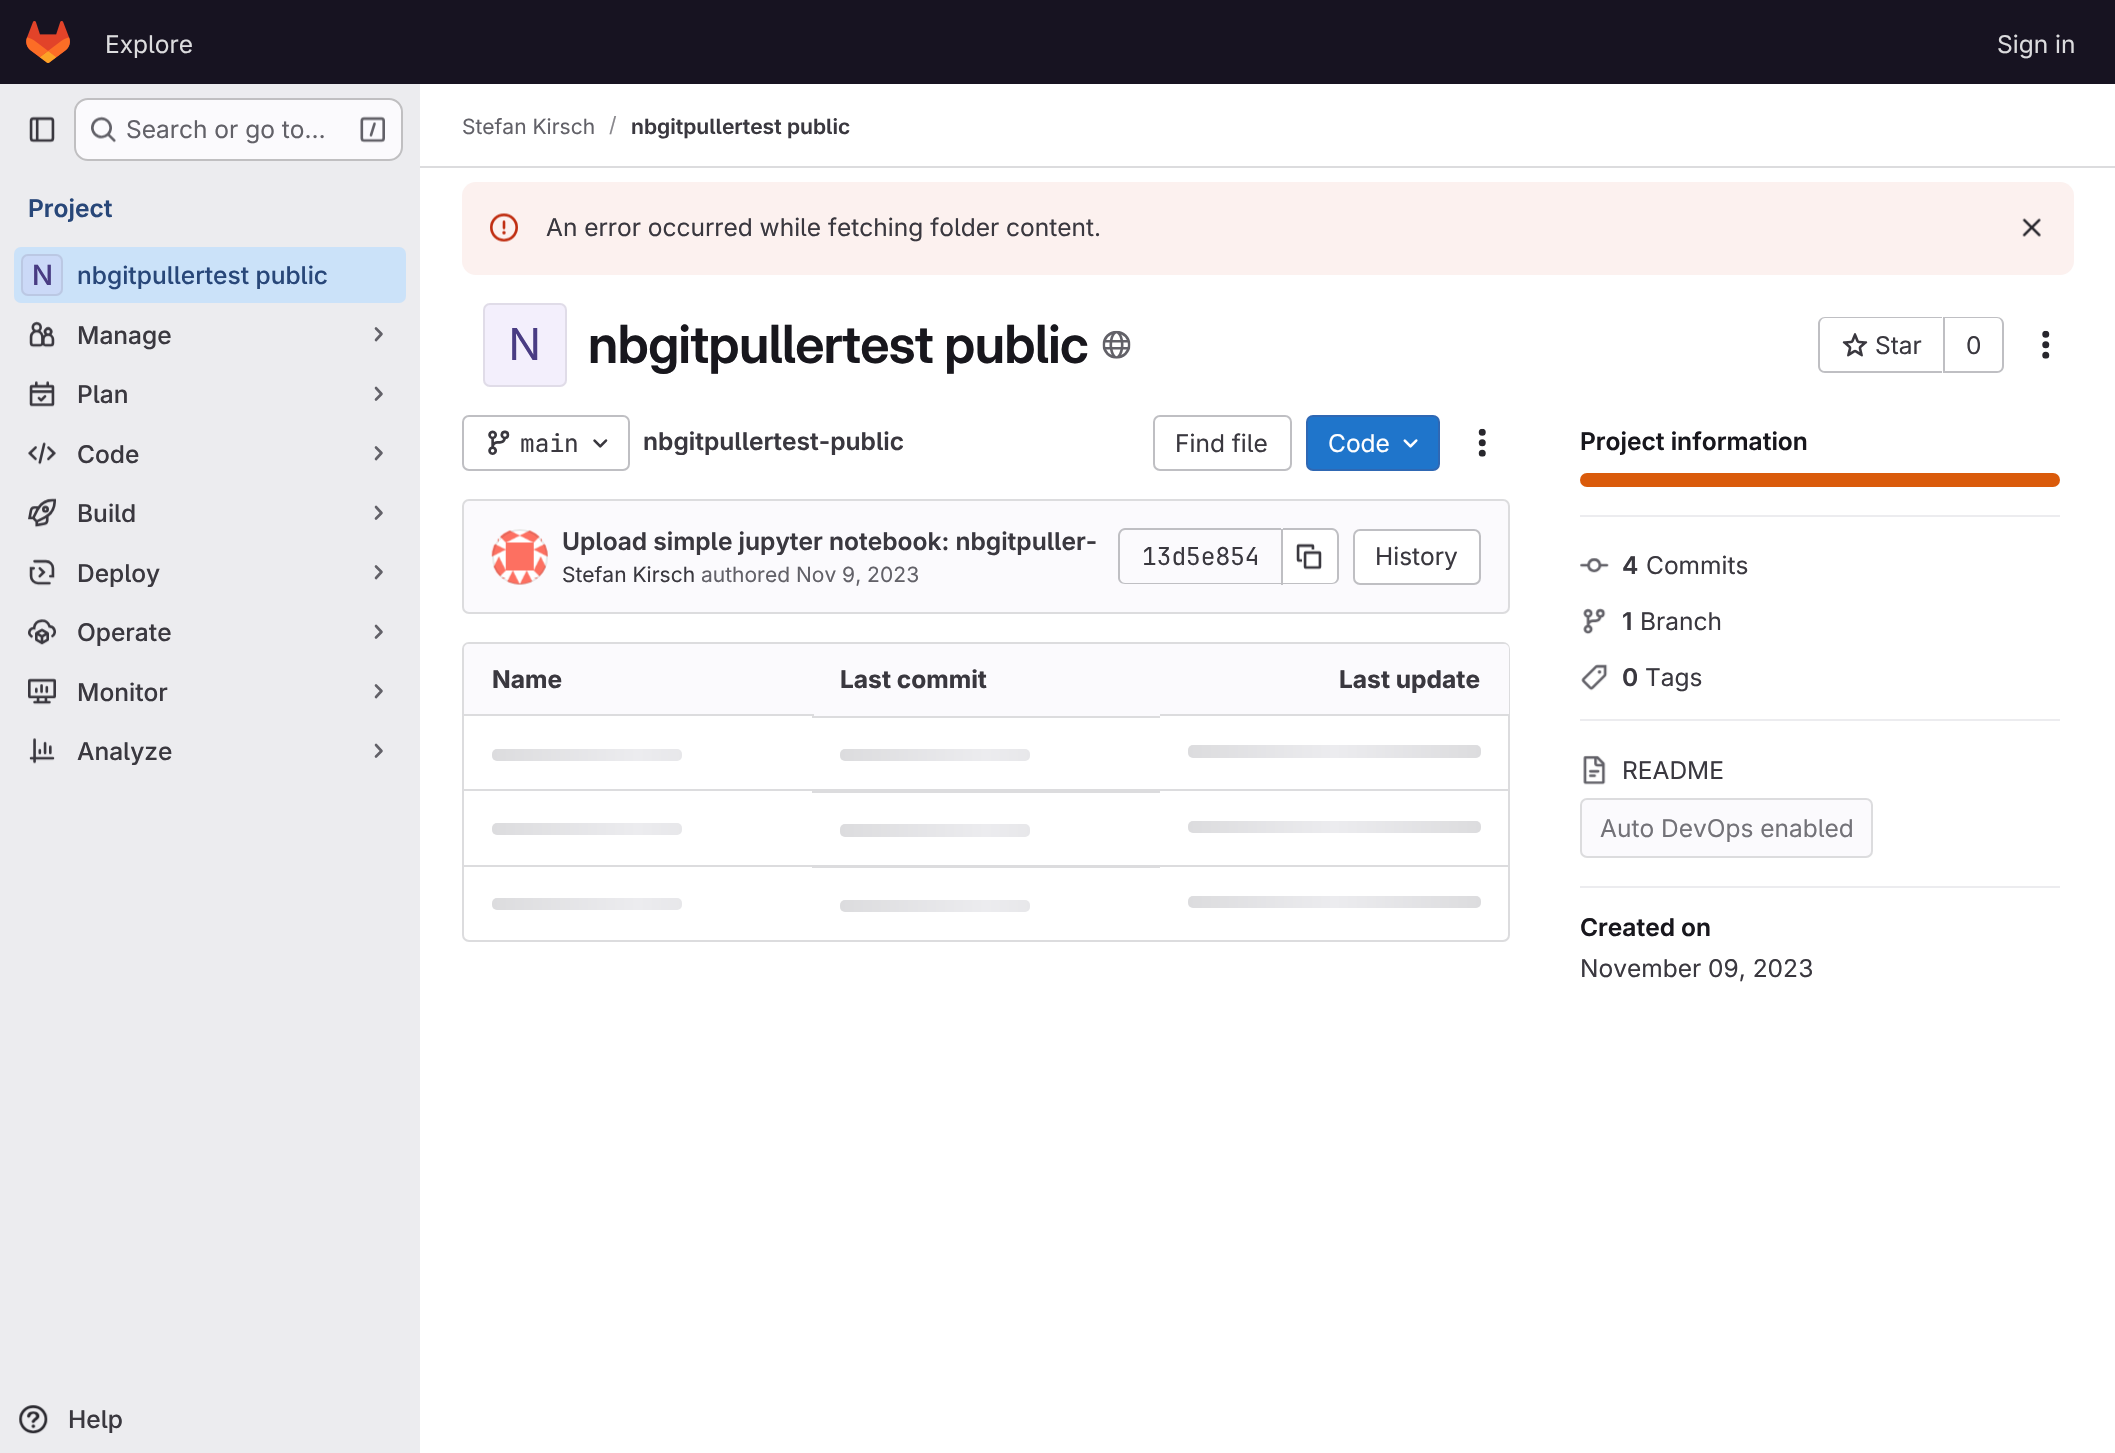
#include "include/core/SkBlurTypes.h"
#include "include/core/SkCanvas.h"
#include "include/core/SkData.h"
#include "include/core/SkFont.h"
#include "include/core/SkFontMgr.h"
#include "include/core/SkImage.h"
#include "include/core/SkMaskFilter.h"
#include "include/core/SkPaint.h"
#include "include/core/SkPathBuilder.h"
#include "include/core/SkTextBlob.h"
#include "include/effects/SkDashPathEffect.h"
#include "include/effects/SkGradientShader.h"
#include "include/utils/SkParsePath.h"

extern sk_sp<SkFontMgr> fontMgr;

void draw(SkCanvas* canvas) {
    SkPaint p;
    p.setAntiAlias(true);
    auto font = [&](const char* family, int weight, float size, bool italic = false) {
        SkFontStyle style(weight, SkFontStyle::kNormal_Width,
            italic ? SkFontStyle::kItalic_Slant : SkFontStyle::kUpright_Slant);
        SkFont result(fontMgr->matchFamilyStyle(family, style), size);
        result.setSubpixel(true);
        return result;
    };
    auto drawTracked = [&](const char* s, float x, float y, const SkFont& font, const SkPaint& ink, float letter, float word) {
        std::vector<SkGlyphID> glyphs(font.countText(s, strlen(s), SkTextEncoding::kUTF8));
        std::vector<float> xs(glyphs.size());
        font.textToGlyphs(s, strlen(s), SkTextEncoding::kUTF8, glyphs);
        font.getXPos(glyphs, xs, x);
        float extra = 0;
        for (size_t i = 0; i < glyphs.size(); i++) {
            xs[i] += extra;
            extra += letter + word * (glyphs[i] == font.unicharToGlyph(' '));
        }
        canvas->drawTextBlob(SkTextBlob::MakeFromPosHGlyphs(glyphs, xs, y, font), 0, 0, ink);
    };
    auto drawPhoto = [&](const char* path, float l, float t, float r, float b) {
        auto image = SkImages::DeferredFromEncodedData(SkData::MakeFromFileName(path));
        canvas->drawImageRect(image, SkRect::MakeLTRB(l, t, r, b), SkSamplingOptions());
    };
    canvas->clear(0xFFFFFFFF);
    p.setColor(0xFF171321);
    canvas->drawRect(SkRect::MakeLTRB(0, 0, 2115, 84), p);
    drawPhoto("media/1.png", 26, 21, 70, 63);
    auto font1 = font("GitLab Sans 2", 400, 24.5f);
    p.setColor(0xFFDCDCDE);
    canvas->drawString("Explore", 105, 53, font1, p);
    canvas->drawString("Sign in", 1997, 53, font1, p);
    p.setColor(0xFFECECEF);
    canvas->drawRect(SkRect::MakeLTRB(0, 84, 420, 1453), p);
    drawPhoto("media/2.png", 29, 116, 55, 143);
    p.setColor(0xFFFBFAFD);
    canvas->drawRoundRect(SkRect::MakeLTRB(74, 98, 403, 161), 14, 14, p);
    p.setStyle(SkPaint::kStroke_Style);
    p.setStrokeWidth(2);
    p.setColor(0x3D050506);
    canvas->drawRoundRect(SkRect::MakeLTRB(75, 99, 402, 160), 13, 13, p);
    drawPhoto("media/3.png", 91, 116, 116, 143);
    p.setStyle(SkPaint::kFill_Style);
    p.setColor(0xFF626168);
    canvas->drawString("Search or go to…", 126, 138, font1, p);
    drawPhoto("media/4.png", 360, 116, 385, 143);
    auto font2 = font("GitLab Sans 2", 600, 24.5f);
    p.setColor(0xFF284779);
    canvas->drawString("Project", 28, 217, font2, p);
    p.setColor(0xFFCBE2F9);
    canvas->drawRoundRect(SkRect::MakeLTRB(14, 247, 406, 303), 7, 7, p);
    p.setColor(0xFFCBD9F7);
    canvas->drawRoundRect(SkRect::MakeLTRB(21, 254, 63, 296), 7, 7, p);
    p.setStyle(SkPaint::kStroke_Style);
    p.setColor(0x14050506);
    canvas->drawRoundRect(SkRect::MakeLTRB(22, 255, 62, 295), 6, 6, p);
    auto font3 = font("GitLab Sans 2", 500, 28);
    p.setStyle(SkPaint::kFill_Style);
    p.setColor(0xFF493C83);
    canvas->drawString("N", 32, 285, font3, p);
    auto font4 = font("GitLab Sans", 500, 24.5f);
    p.setColor(0xFF284779);
    canvas->drawString("nbgitpullertest public", 77, 284, font4, p);
    drawPhoto("media/5.png", 29, 321, 55, 348);
    p.setColor(0xFF3A383F);
    canvas->drawString("Manage", 77, 344, font4, p);
    p.setStyle(SkPaint::kStroke_Style);
    p.setStrokeWidth(2.6f);
    p.setStrokeCap(SkPaint::kRound_Cap);
    p.setStrokeJoin(SkPaint::kRound_Join);
    p.setColor(0xFF626168);
    canvas->drawPath(SkPathBuilder().moveTo(376, 328.5f).lineTo(381.5f, 334).lineTo(376, 340).detach(), p);
    drawPhoto("media/6.png", 29, 381, 55, 407);
    p.setStyle(SkPaint::kFill_Style);
    p.setColor(0xFF3A383F);
    canvas->drawString("Plan", 77, 403, font4, p);
    p.setStyle(SkPaint::kStroke_Style);
    p.setColor(0xFF626168);
    canvas->drawPath(SkPathBuilder().moveTo(376, 388).lineTo(381.5f, 394).lineTo(376, 399.5f).detach(), p);
    drawPhoto("media/7.png", 28, 442, 56, 465);
    p.setStyle(SkPaint::kFill_Style);
    p.setColor(0xFF3A383F);
    canvas->drawString("Code", 77, 463, font4, p);
    p.setStyle(SkPaint::kStroke_Style);
    p.setColor(0xFF626168);
    canvas->drawPath(SkPathBuilder().moveTo(376, 447.5f).lineTo(381.5f, 453).lineTo(376, 459).detach(), p);
    drawPhoto("media/8.png", 28, 498, 56, 528);
    p.setStyle(SkPaint::kFill_Style);
    p.setColor(0xFF3A383F);
    canvas->drawString("Build", 77, 522, font4, p);
    p.setStyle(SkPaint::kStroke_Style);
    p.setColor(0xFF626168);
    canvas->drawPath(SkPathBuilder().moveTo(376, 507).lineTo(381.5f, 513).lineTo(376, 518.5f).detach(), p);
    drawPhoto("media/9.png", 29, 559, 55, 586);
    p.setStyle(SkPaint::kFill_Style);
    p.setColor(0xFF3A383F);
    canvas->drawString("Deploy", 77, 582, font4, p);
    p.setStyle(SkPaint::kStroke_Style);
    p.setColor(0xFF626168);
    canvas->drawPath(SkPathBuilder().moveTo(376, 566.5f).lineTo(381.5f, 572).lineTo(376, 578).detach(), p);
    drawPhoto("media/10.png", 28, 619, 56, 645);
    p.setStyle(SkPaint::kFill_Style);
    p.setColor(0xFF3A383F);
    canvas->drawString("Operate", 77, 641, font4, p);
    p.setStyle(SkPaint::kStroke_Style);
    p.setColor(0xFF626168);
    canvas->drawPath(SkPathBuilder().moveTo(376, 626).lineTo(381.5f, 632).lineTo(376, 637.5f).detach(), p);
    drawPhoto("media/11.png", 28, 678, 56, 705);
    p.setStyle(SkPaint::kFill_Style);
    p.setColor(0xFF3A383F);
    canvas->drawString("Monitor", 77, 701, font4, p);
    p.setStyle(SkPaint::kStroke_Style);
    p.setColor(0xFF626168);
    canvas->drawPath(SkPathBuilder().moveTo(376, 685.5f).lineTo(381.5f, 691).lineTo(376, 697).detach(), p);
    drawPhoto("media/12.png", 29, 738, 55, 764);
    p.setStyle(SkPaint::kFill_Style);
    p.setColor(0xFF3A383F);
    canvas->drawString("Analyze", 77, 760, font4, p);
    p.setStyle(SkPaint::kStroke_Style);
    p.setColor(0xFF626168);
    canvas->drawPath(SkPathBuilder().moveTo(376, 745).lineTo(381.5f, 751).lineTo(376, 756.5f).detach(), p);
    drawPhoto("media/13.png", 19, 1405, 48, 1434);
    p.setStyle(SkPaint::kFill_Style);
    p.setColor(0xFF3A383F);
    canvas->drawString("Help", 68, 1428, font4, p);
    p.setColor(0xFFDCDCDE);
    canvas->drawRect(SkRect::MakeLTRB(420, 166, 2115, 168), p);
    auto font5 = font("GitLab Sans 2", 400, 21);
    p.setColor(0xFF626168);
    canvas->drawString("Stefan Kirsch", 462, 134, font5, p);
    p.setColor(0xFF89888D);
    canvas->drawString("/", 609, 132, font5, p);
    auto font6 = font("GitLab Sans 2", 600, 21);
    p.setColor(0xFF3A383F);
    canvas->drawString("nbgitpullertest public", 631, 134, font6, p);
    p.setColor(0xFFFCF1EF);
    canvas->drawRoundRect(SkRect::MakeLTRB(462, 182, 2074, 275), 14, 14, p);
    drawPhoto("media/14.png", 490, 213, 518, 242);
    p.setColor(0xFF3A383F);
    canvas->drawString("An error occurred while fetching folder content.", 546, 236, font1, p);
    drawPhoto("media/15.png", 2022, 218, 2041, 237);
    p.setColor(0xFFF3EFFC);
    canvas->drawRoundRect(SkRect::MakeLTRB(483, 303, 567, 387), 7, 7, p);
    p.setStyle(SkPaint::kStroke_Style);
    p.setStrokeWidth(2);
    p.setStrokeCap(SkPaint::kButt_Cap);
    p.setStrokeJoin(SkPaint::kMiter_Join);
    p.setColor(0x14050506);
    canvas->drawRoundRect(SkRect::MakeLTRB(484, 304, 566, 386), 6, 6, p);
    auto font7 = font("GitLab Sans", 400, 44);
    p.setStyle(SkPaint::kFill_Style);
    p.setColor(0xFF493C83);
    canvas->drawString("N", 509, 360, font7, p);
    auto font8 = font("GitLab Sans", 600, 52.5f);
    p.setColor(0xFF18171D);
    drawTracked("nbgitpullertest public", 588, 363, font8, p, -0.5f, 0);
    drawPhoto("media/16.png", 1102, 330, 1131, 359);
    p.setColor(0xFFBFBFC3);
    canvas->drawPath(SkPathBuilder(SkPathFillType::kEvenOdd).moveTo(1825, 317).lineTo(1942, 317).lineTo(1942, 373).lineTo(1825, 373).cubicTo(1821, 373, 1818, 370, 1818, 366).lineTo(1818, 324).cubicTo(1818, 320, 1821, 317, 1825, 317).close().moveTo(1825, 318).lineTo(1942, 318).lineTo(1942, 371).lineTo(1825, 371).cubicTo(1822, 371, 1820, 369, 1820, 366).lineTo(1820, 324).cubicTo(1820, 321, 1822, 318, 1825, 318).close().detach(), p);
    drawPhoto("media/17.png", 1842, 333, 1868, 357);
    p.setColor(0xFF3A383F);
    canvas->drawString("Star", 1875, 354, font1, p);
    p.setColor(0xFFBFBFC3);
    canvas->drawPath(SkPathBuilder(SkPathFillType::kEvenOdd).moveTo(1944, 317).lineTo(1997, 317).cubicTo(2001, 317, 2004, 320, 2004, 324).lineTo(2004, 366).cubicTo(2004, 370, 2001, 373, 1997, 373).lineTo(1944, 373).close().moveTo(1944, 318).lineTo(1997, 318).cubicTo(2000, 318, 2002, 321, 2002, 324).lineTo(2002, 366).cubicTo(2002, 369, 2000, 371, 1997, 371).lineTo(1944, 371).close().detach(), p);
    canvas->drawRect(SkRect::MakeLTRB(1943, 317, 1945, 373), p);
    p.setColor(0xFF3A383F);
    canvas->drawString("0", 1966, 354, font1, p);
    drawPhoto("media/18.png", 2042, 330, 2050, 359);
    p.setStyle(SkPaint::kStroke_Style);
    p.setColor(0xFFBFBFC3);
    canvas->drawRoundRect(SkRect::MakeLTRB(463, 416, 629, 470), 6, 6, p);
    drawPhoto("media/19.png", 488, 430, 510, 455);
    auto font9 = font("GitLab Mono", 400, 24.5f);
    p.setStyle(SkPaint::kFill_Style);
    p.setColor(0xFF3A383F);
    canvas->drawString("main", 520, 452, font9, p);
    drawPhoto("media/20.png", 593, 439, 608, 448);
    canvas->save();
    canvas->clipPath(SkPathBuilder().moveTo(651, 425).lineTo(898, 425).cubicTo(902, 425, 905, 428, 905, 432).lineTo(905, 448).cubicTo(905, 452, 902, 455, 898, 455).lineTo(651, 455).cubicTo(647, 455, 644, 452, 644, 448).lineTo(644, 432).cubicTo(644, 428, 647, 425, 651, 425).close().detach(), true);
    canvas->drawString("nbgitpullertest-public", 643, 450, font2, p);
    canvas->restore();
    p.setStyle(SkPaint::kStroke_Style);
    p.setColor(0xFFBFBFC3);
    canvas->drawRoundRect(SkRect::MakeLTRB(1154, 416, 1291, 470), 6, 6, p);
    p.setStyle(SkPaint::kFill_Style);
    p.setColor(0xFF3A383F);
    canvas->drawString("Find file", 1175, 452, font1, p);
    p.setColor(0xFF1F75CB);
    canvas->drawRoundRect(SkRect::MakeLTRB(1307, 416, 1439, 470), 6, 6, p);
    p.setStyle(SkPaint::kStroke_Style);
    p.setColor(0xFF2F68B4);
    canvas->drawRoundRect(SkRect::MakeLTRB(1307, 416, 1439, 470), 6, 6, p);
    p.setStyle(SkPaint::kFill_Style);
    p.setColor(0xFFFFFFFF);
    canvas->drawString("Code", 1328, 452, font1, p);
    drawPhoto("media/21.png", 1403, 439, 1418, 448);
    drawPhoto("media/22.png", 1478, 428, 1486, 457);
    p.setColor(0xFFFBFAFD);
    canvas->drawRoundRect(SkRect::MakeLTRB(463, 500, 1509, 613), 6, 6, p);
    p.setStyle(SkPaint::kStroke_Style);
    p.setColor(0xFFDCDCDE);
    canvas->drawRoundRect(SkRect::MakeLTRB(463, 500, 1509, 613), 6, 6, p);
    drawPhoto("media/23.png", 491, 529, 548, 585);
    p.setColor(0x14050506);
    canvas->drawCircle(520, 557, 27, p);
    p.setStyle(SkPaint::kFill_Style);
    p.setColor(0xFF3A383F);
    canvas->drawString("Upload simple jupyter notebook: nbgitpuller-", 562, 550, font2, p);
    canvas->drawString("Stefan Kirsch", 562, 582, font5, p);
    p.setColor(0xFF626168);
    canvas->drawString("authored Nov 9, 2023", 701, 582, font5, p);
    p.setColor(0xFFBFBFC3);
    canvas->drawPath(SkPathBuilder(SkPathFillType::kEvenOdd).moveTo(1125, 528).lineTo(1281, 528).lineTo(1281, 584).lineTo(1125, 584).cubicTo(1121, 584, 1118, 581, 1118, 578).lineTo(1118, 536).cubicTo(1118, 532, 1121, 528, 1125, 528).close().moveTo(1125, 530).lineTo(1281, 530).lineTo(1281, 583).lineTo(1125, 583).cubicTo(1122, 583, 1120, 580, 1120, 578).lineTo(1120, 536).cubicTo(1120, 533, 1122, 530, 1125, 530).close().detach(), p);
    p.setColor(0xFF3A383F);
    canvas->drawString("13d5e854", 1142, 565, font9, p);
    p.setColor(0xFFFFFFFF);
    canvas->drawPath(SkPathBuilder().moveTo(1283, 530).lineTo(1332, 530).cubicTo(1335, 530, 1337, 532, 1337, 535).lineTo(1337, 578).cubicTo(1337, 581, 1335, 583, 1332, 583).lineTo(1283, 583).close().detach(), p);
    p.setColor(0xFFBFBFC3);
    canvas->drawPath(SkPathBuilder(SkPathFillType::kEvenOdd).moveTo(1283, 528).lineTo(1332, 528).cubicTo(1336, 528, 1339, 532, 1339, 536).lineTo(1339, 578).cubicTo(1339, 581, 1336, 584, 1332, 584).lineTo(1283, 584).close().moveTo(1283, 530).lineTo(1332, 530).cubicTo(1335, 530, 1337, 533, 1337, 536).lineTo(1337, 578).cubicTo(1337, 580, 1335, 583, 1332, 583).lineTo(1283, 583).close().detach(), p);
    canvas->drawRect(SkRect::MakeLTRB(1281, 529, 1283, 585), p);
    drawPhoto("media/24.png", 1296, 543, 1322, 570);
    p.setColor(0xFFFFFFFF);
    canvas->drawRoundRect(SkRect::MakeLTRB(1354, 530, 1480, 584), 6, 6, p);
    p.setStyle(SkPaint::kStroke_Style);
    p.setColor(0xFFBFBFC3);
    canvas->drawRoundRect(SkRect::MakeLTRB(1354, 530, 1480, 584), 6, 6, p);
    p.setStyle(SkPaint::kFill_Style);
    p.setColor(0xFF3A383F);
    canvas->drawString("History", 1375, 565, font1, p);
    p.setStyle(SkPaint::kStroke_Style);
    p.setColor(0xFFDCDCDE);
    canvas->drawRoundRect(SkRect::MakeLTRB(463, 643, 1509, 941), 6, 6, p);
    p.setStyle(SkPaint::kFill_Style);
    p.setColor(0xFFFBFAFD);
    canvas->drawPath(SkPathBuilder().moveTo(469, 644).lineTo(812, 644).lineTo(812, 716).lineTo(464, 716).lineTo(464, 649).cubicTo(464, 646, 466, 644, 469, 644).close().detach(), p);
    auto font10 = font("GitLab Sans", 700, 24.5f);
    p.setColor(0xFF3A383F);
    canvas->drawString("Name", 492, 688, font10, p);
    p.setColor(0xFFFBFAFD);
    canvas->drawRect(SkRect::MakeLTRB(812, 644, 1160, 716), p);
    p.setColor(0xFF3A383F);
    canvas->drawString("Last commit", 840, 688, font10, p);
    p.setColor(0xFFFBFAFD);
    canvas->drawPath(SkPathBuilder().moveTo(1160, 644).lineTo(1504, 644).cubicTo(1507, 644, 1509, 646, 1509, 649).lineTo(1509, 716).lineTo(1160, 716).close().detach(), p);
    p.setColor(0xFF3A383F);
    canvas->drawString("Last update", 1339, 688, font10, p);
    p.setColor(0xFFDCDCDE);
    canvas->drawRect(SkRect::MakeLTRB(464, 789, 1509, 791), p);
    canvas->drawRect(SkRect::MakeLTRB(464, 714, 814, 716), p);
    {
        const SkColor colors[] = {0xFFDCDCDE, 0xFFECECEF, 0xFFDCDCDE};
        const float stops[] = {0, 0.5f, 1};
        const SkPoint ends[] = {{492, 749}, {784, 749}};
        p.setShader(SkGradientShader::MakeLinear(ends, colors, stops, 3, SkTileMode::kClamp));
        p.setAlpha(255);
    }
    canvas->drawRoundRect(SkRect::MakeLTRB(492, 749, 682, 761), 5, 5, p);
    p.setShader(nullptr);
    p.setColor(0xFFDCDCDE);
    canvas->drawRect(SkRect::MakeLTRB(812, 716, 1160, 718), p);
    {
        const SkColor colors[] = {0xFFDCDCDE, 0xFFECECEF, 0xFFDCDCDE};
        const float stops[] = {0, 0.5f, 1};
        const SkPoint ends[] = {{840, 749}, {1132, 749}};
        p.setShader(SkGradientShader::MakeLinear(ends, colors, stops, 3, SkTileMode::kClamp));
        p.setAlpha(255);
    }
    canvas->drawRoundRect(SkRect::MakeLTRB(840, 749, 1030, 761), 5, 5, p);
    p.setShader(nullptr);
    p.setColor(0xFFDCDCDE);
    canvas->drawRect(SkRect::MakeLTRB(1160, 714, 1509, 716), p);
    {
        const SkColor colors[] = {0xFFDCDCDE, 0xFFECECEF, 0xFFDCDCDE};
        const float stops[] = {0, 0.5f, 1};
        const SkPoint ends[] = {{1188, 745}, {1481, 745}};
        p.setShader(SkGradientShader::MakeLinear(ends, colors, stops, 3, SkTileMode::kClamp));
        p.setAlpha(255);
    }
    canvas->drawRoundRect(SkRect::MakeLTRB(1188, 745, 1481, 758), 5, 5, p);
    p.setShader(nullptr);
    p.setColor(0xFFDCDCDE);
    canvas->drawRect(SkRect::MakeLTRB(464, 865, 1509, 867), p);
    {
        const SkColor colors[] = {0xFFDCDCDE, 0xFFECECEF, 0xFFDCDCDE};
        const float stops[] = {0, 0.5f, 1};
        const SkPoint ends[] = {{492, 823}, {784, 823}};
        p.setShader(SkGradientShader::MakeLinear(ends, colors, stops, 3, SkTileMode::kClamp));
        p.setAlpha(255);
    }
    canvas->drawRoundRect(SkRect::MakeLTRB(492, 823, 682, 835), 5, 5, p);
    p.setShader(nullptr);
    p.setColor(0xFFDCDCDE);
    canvas->drawRect(SkRect::MakeLTRB(812, 791, 1160, 793), p);
    {
        const SkColor colors[] = {0xFFDCDCDE, 0xFFECECEF, 0xFFDCDCDE};
        const float stops[] = {0, 0.5f, 1};
        const SkPoint ends[] = {{840, 824}, {1132, 824}};
        p.setShader(SkGradientShader::MakeLinear(ends, colors, stops, 3, SkTileMode::kClamp));
        p.setAlpha(255);
    }
    canvas->drawRoundRect(SkRect::MakeLTRB(840, 824, 1030, 837), 5, 5, p);
    {
        const SkColor colors[] = {0xFFDCDCDE, 0xFFECECEF, 0xFFDCDCDE};
        const float stops[] = {0, 0.5f, 1};
        const SkPoint ends[] = {{1188, 821}, {1481, 821}};
        p.setShader(SkGradientShader::MakeLinear(ends, colors, stops, 3, SkTileMode::kClamp));
        p.setAlpha(255);
    }
    canvas->drawRoundRect(SkRect::MakeLTRB(1188, 821, 1481, 833), 5, 5, p);
    {
        const SkColor colors[] = {0xFFDCDCDE, 0xFFECECEF, 0xFFDCDCDE};
        const float stops[] = {0, 0.5f, 1};
        const SkPoint ends[] = {{492, 898}, {784, 898}};
        p.setShader(SkGradientShader::MakeLinear(ends, colors, stops, 3, SkTileMode::kClamp));
        p.setAlpha(255);
    }
    canvas->drawRoundRect(SkRect::MakeLTRB(492, 898, 682, 910), 5, 5, p);
    p.setShader(nullptr);
    p.setColor(0xFFDCDCDE);
    canvas->drawRect(SkRect::MakeLTRB(812, 867, 1160, 868), p);
    {
        const SkColor colors[] = {0xFFDCDCDE, 0xFFECECEF, 0xFFDCDCDE};
        const float stops[] = {0, 0.5f, 1};
        const SkPoint ends[] = {{840, 900}, {1132, 900}};
        p.setShader(SkGradientShader::MakeLinear(ends, colors, stops, 3, SkTileMode::kClamp));
        p.setAlpha(255);
    }
    canvas->drawRoundRect(SkRect::MakeLTRB(840, 900, 1030, 912), 5, 5, p);
    {
        const SkColor colors[] = {0xFFDCDCDE, 0xFFECECEF, 0xFFDCDCDE};
        const float stops[] = {0, 0.5f, 1};
        const SkPoint ends[] = {{1188, 896}, {1481, 896}};
        p.setShader(SkGradientShader::MakeLinear(ends, colors, stops, 3, SkTileMode::kClamp));
        p.setAlpha(255);
    }
    canvas->drawRoundRect(SkRect::MakeLTRB(1188, 896, 1481, 908), 5, 5, p);
    p.setShader(nullptr);
    p.setColor(0xFFECECEF);
    canvas->drawRect(SkRect::MakeLTRB(1580, 515, 2060, 517), p);
    p.setColor(0xFF18171D);
    canvas->drawString("Project information", 1580, 450, font2, p);
    p.setColor(0xFFDA5B0B);
    canvas->drawRoundRect(SkRect::MakeLTRB(1580, 473, 2060, 487), 7, 7, p);
    p.setColor(0xFFECECEF);
    canvas->drawRect(SkRect::MakeLTRB(1580, 719, 2060, 721), p);
    drawPhoto("media/25.png", 1580, 558, 1609, 573);
    p.setColor(0xFF3A383F);
    canvas->drawString("4", 1622, 574, font2, p);
    canvas->drawString("Commits", 1646, 574, font1, p);
    drawPhoto("media/26.png", 1583, 608, 1606, 635);
    canvas->drawString("1", 1622, 630, font2, p);
    canvas->drawString("Branch", 1640, 630, font1, p);
    drawPhoto("media/27.png", 1581, 664, 1608, 691);
    canvas->drawString("0", 1622, 686, font2, p);
    canvas->drawString("Tags", 1645, 686, font1, p);
    p.setColor(0xFFECECEF);
    canvas->drawRect(SkRect::MakeLTRB(1580, 886, 2060, 888), p);
    drawPhoto("media/28.png", 1583, 755, 1606, 785);
    p.setColor(0xFF3A383F);
    canvas->drawString("README", 1622, 779, font1, p);
    p.setColor(0xFFFBFAFD);
    canvas->drawRoundRect(SkRect::MakeLTRB(1581, 799, 1872, 857), 6, 6, p);
    p.setStyle(SkPaint::kStroke_Style);
    p.setColor(0xFFDCDCDE);
    canvas->drawRoundRect(SkRect::MakeLTRB(1581, 799, 1872, 857), 6, 6, p);
    p.setStyle(SkPaint::kFill_Style);
    p.setColor(0xFF737278);
    canvas->drawString("Auto DevOps enabled", 1600, 837, font1, p);
    p.setColor(0xFF18171D);
    canvas->drawString("Created on", 1580, 936, font2, p);
    p.setColor(0xFF3A383F);
    canvas->drawString("November 09, 2023", 1580, 977, font1, p);
}
